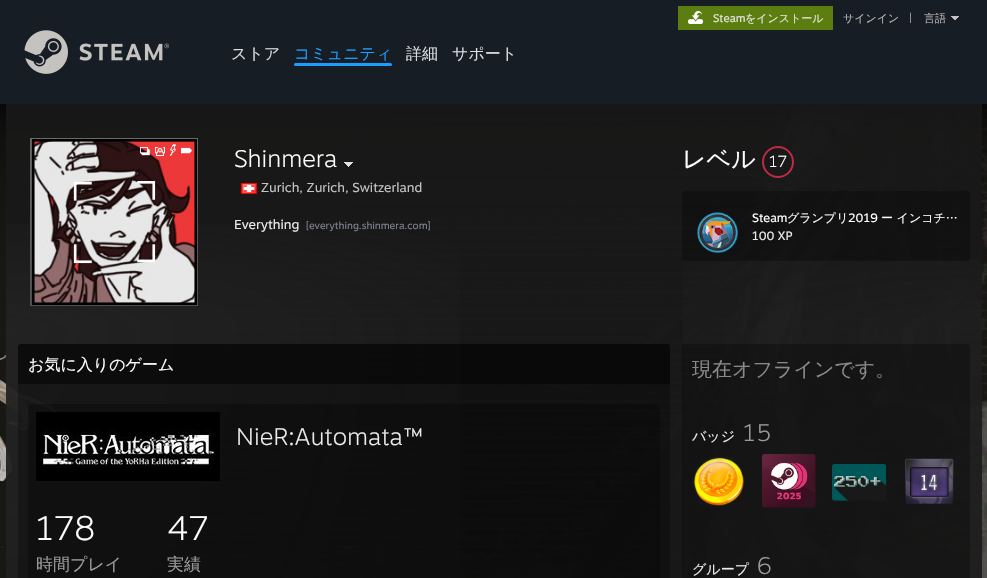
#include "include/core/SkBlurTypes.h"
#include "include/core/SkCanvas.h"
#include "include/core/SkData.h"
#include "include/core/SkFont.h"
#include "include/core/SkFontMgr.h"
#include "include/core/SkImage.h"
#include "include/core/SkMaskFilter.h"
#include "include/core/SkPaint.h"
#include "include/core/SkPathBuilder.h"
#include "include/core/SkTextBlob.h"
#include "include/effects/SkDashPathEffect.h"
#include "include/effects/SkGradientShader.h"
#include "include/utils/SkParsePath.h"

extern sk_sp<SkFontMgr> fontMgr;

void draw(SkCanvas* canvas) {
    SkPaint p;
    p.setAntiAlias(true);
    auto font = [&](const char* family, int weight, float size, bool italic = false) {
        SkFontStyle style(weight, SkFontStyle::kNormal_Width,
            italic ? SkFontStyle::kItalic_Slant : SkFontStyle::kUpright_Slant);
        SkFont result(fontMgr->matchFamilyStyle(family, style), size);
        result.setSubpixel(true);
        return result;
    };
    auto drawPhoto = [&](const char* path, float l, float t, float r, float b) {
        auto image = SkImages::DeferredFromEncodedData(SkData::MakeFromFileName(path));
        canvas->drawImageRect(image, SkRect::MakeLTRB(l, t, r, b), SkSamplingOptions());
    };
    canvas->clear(0xFF171D25);
    p.setColor(0xFF5C7E10);
    canvas->drawRect(SkRect::MakeLTRB(678, 6, 833, 30), p);
    drawPhoto("media/1.png", 688, 11, 703, 24);
    auto font1 = font("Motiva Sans", 400, 11);
    p.setColor(0xFFE5E4DC);
    canvas->drawString("Steam", 713, 22, font1, p);
    auto font2 = font("WenQuanYi Zen Hei", 500, 11);
    canvas->drawString("をインストール", 745, 22, font2, p);
    p.setColor(0xFFB8B6B4);
    canvas->drawString("サインイン", 843, 22, font2, p);
    canvas->drawString("|", 909, 22, font1, p);
    canvas->drawString("言語", 924, 22, font2, p);
    drawPhoto("media/2.png", 951, 16, 959, 20);
    drawPhoto("media/3.png", 24, 30, 169, 74);
    auto font3 = font("WenQuanYi Zen Hei", 500, 16);
    p.setColor(0xFFDCDEDF);
    canvas->drawString("ストア", 231, 59, font3, p);
    p.setColor(0xFF1A9FFF);
    canvas->drawString("コミュニティ", 294, 59, font3, p);
    canvas->drawRoundRect(SkRect::MakeLTRB(294, 63, 392, 66), 1.5f, 1.5f, p);
    p.setColor(0xFFDCDEDF);
    canvas->drawString("詳細", 406, 59, font3, p);
    canvas->drawString("サポート", 452, 59, font3, p);
    drawPhoto("media/4.png", 0, 104, 987, 578);
    p.setColor(0xED181818);
    canvas->drawRect(SkRect::MakeLTRB(6, 104, 982, 328), p);
    {
        const SkColor colors[] = {0x5E333333, 0x00333333};
        const float stops[] = {0, 0.43f};
        SkMatrix m = SkMatrix::Translate(6, 328).preScale(1380, 317);
        p.setShader(SkGradientShader::MakeRadial({0, 0}, 1, colors, stops, 2, SkTileMode::kClamp, 0, &m));
        p.setAlpha(255);
    }
    canvas->drawRect(SkRect::MakeLTRB(6, 224, 460, 328), p);
    {
        const SkColor colors[] = {0x3B313131, 0x00313131};
        const float stops[] = {0, 0.51f};
        SkMatrix m = SkMatrix::Translate(982, 328).preScale(976, 224);
        p.setShader(SkGradientShader::MakeRadial({0, 0}, 1, colors, stops, 2, SkTileMode::kClamp, 0, &m));
        p.setAlpha(255);
    }
    canvas->drawRect(SkRect::MakeLTRB(683, 259, 982, 328), p);
    {
        const SkColor colors[] = {0xFF6A6A6A, 0xFF555555};
        const float stops[] = {0.05f, 0.95f};
        const SkPoint ends[] = {{114, 138}, {114, 306}};
        p.setShader(SkGradientShader::MakeLinear(ends, colors, stops, 2, SkTileMode::kClamp));
        p.setAlpha(255);
    }
    canvas->drawRect(SkRect::MakeLTRB(30, 138, 198, 306), p);
    drawPhoto("media/6.png", 34, 141, 195, 303);
    drawPhoto("media/5.png", 31, 139, 198, 306);
    auto font4 = font("Motiva Sans", 100, 24);
    p.setShader(nullptr);
    p.setColor(0xFFFFFFFF);
    canvas->drawString("Shinmera", 234, 167, font4, p);
    drawPhoto("media/7.png", 344, 162, 353, 167);
    drawPhoto("media/8.png", 241, 183, 257, 194);
    auto font5 = font("Motiva Sans", 400, 13);
    p.setColor(0xFFC4C4C4);
    canvas->drawString("Zurich, Zurich, Switzerland", 261, 192, font5, p);
    p.setColor(0xFFEBEBEB);
    canvas->drawString("Everything", 234, 229, font5, p);
    auto font6 = font("Motiva Sans", 400, 10);
    p.setColor(0xFF7E8391);
    canvas->drawString("[everything.shinmera.com]", 306, 229, font6, p);
    auto font7 = font("WenQuanYi Zen Hei", 500, 24);
    p.setColor(0xFFFFFFFF);
    canvas->drawString("レベル", 682, 167, font7, p);
    p.setStyle(SkPaint::kStroke_Style);
    p.setStrokeWidth(2);
    p.setColor(0xFFC02942);
    canvas->drawCircle(778, 162, 15, p);
    auto font8 = font("Motiva Sans", 100, 16);
    p.setStyle(SkPaint::kFill_Style);
    p.setColor(0xFFFFFFFF);
    canvas->drawString("17", 769, 167, font8, p);
    p.setColor(0x4D000000);
    canvas->drawRoundRect(SkRect::MakeLTRB(682, 191, 970, 261), 3, 3, p);
    drawPhoto("media/9.png", 697, 212, 738, 253);
    auto font9 = font("Motiva Sans", 400, 12);
    p.setColor(0xFFFFFFFF);
    canvas->drawString("Steam", 752, 222, font9, p);
    auto font10 = font("WenQuanYi Zen Hei", 500, 12);
    canvas->drawString("グランプリ", 787, 222, font10, p);
    canvas->drawString("2019", 848, 222, font9, p);
    canvas->drawString("ー インコチ…", 881, 222, font10, p);
    p.setColor(0xFFEBEBEB);
    canvas->drawString("100 XP", 752, 240, font9, p);
    p.setColor(0xED181818);
    canvas->drawRect(SkRect::MakeLTRB(6, 328, 982, 578), p);
    {
        const SkColor colors[] = {0x5E333333, 0x00333333};
        const float stops[] = {0, 0.43f};
        SkMatrix m = SkMatrix::Translate(6, 328).preScale(1380, 1894);
        p.setShader(SkGradientShader::MakeRadial({0, 0}, 1, colors, stops, 2, SkTileMode::kClamp, 0, &m));
        p.setAlpha(255);
    }
    canvas->drawRect(SkRect::MakeLTRB(6, 328, 460, 578), p);
    {
        const SkColor colors[] = {0x3B313131, 0x00313131};
        const float stops[] = {0, 0.51f};
        SkMatrix m = SkMatrix::Translate(982, 328).preScale(976, 1339);
        p.setShader(SkGradientShader::MakeRadial({0, 0}, 1, colors, stops, 2, SkTileMode::kClamp, 0, &m));
        p.setAlpha(255);
    }
    canvas->drawRect(SkRect::MakeLTRB(683, 328, 982, 578), p);
    p.setShader(nullptr);
    p.setColor(0x4D000000);
    canvas->drawRoundRect(SkRect::MakeLTRB(18, 344, 670, 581), 3, 3, p);
    p.setColor(0x80000000);
    canvas->drawPath(SkPathBuilder().moveTo(21, 344).lineTo(667, 344).cubicTo(668.5f, 344, 670, 345.5f, 670, 347).lineTo(670, 384).lineTo(18, 384).lineTo(18, 347).cubicTo(18, 345.5f, 19.5f, 344, 21, 344).close().detach(), p);
    p.setColor(0xFFFFFFFF);
    canvas->drawString("お気に入りのゲーム", 28, 370, font3, p);
    p.setColor(0x4D000000);
    canvas->drawRoundRect(SkRect::MakeLTRB(28, 404, 660, 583), 5, 5, p);
    drawPhoto("media/10.png", 36, 412, 220, 481);
    p.setColor(0xFFEBEBEB);
    canvas->drawString("NieR:Automata™", 236, 445, font4, p);
    auto font11 = font("Motiva Sans", 100, 34);
    p.setColor(0xFFFFFFFF);
    canvas->drawString("178", 36, 540, font11, p);
    auto font12 = font("WenQuanYi Zen Hei", 500, 17);
    p.setColor(0xFF9B9B9B);
    canvas->drawString("時間プレイ", 36, 570, font12, p);
    p.setColor(0xFFFFFFFF);
    canvas->drawString("47", 167, 540, font11, p);
    p.setColor(0xFF9B9B9B);
    canvas->drawString("実績", 167, 570, font12, p);
    p.setColor(0x4D000000);
    canvas->drawRoundRect(SkRect::MakeLTRB(682, 344, 970, 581), 3, 3, p);
    auto font13 = font("WenQuanYi Zen Hei", 500, 20);
    p.setColor(0xFF898989);
    canvas->drawString("現在オフラインです。", 692, 376, font13, p);
    auto font14 = font("WenQuanYi Zen Hei", 500, 14);
    p.setColor(0xFFEBEBEB);
    canvas->drawString("バッジ", 692, 441, font14, p);
    p.setColor(0xFF9B9B9B);
    canvas->drawString("15", 743, 441, font4, p);
    drawPhoto("media/11.png", 693, 457, 744, 506);
    drawPhoto("media/12.png", 762, 454, 816, 508);
    drawPhoto("media/13.png", 832, 464, 886, 501);
    drawPhoto("media/14.png", 905, 458, 954, 505);
    p.setColor(0xFFEBEBEB);
    canvas->drawString("グループ", 692, 574, font14, p);
    p.setColor(0xFF9B9B9B);
    canvas->drawString("6", 757, 574, font4, p);
}
